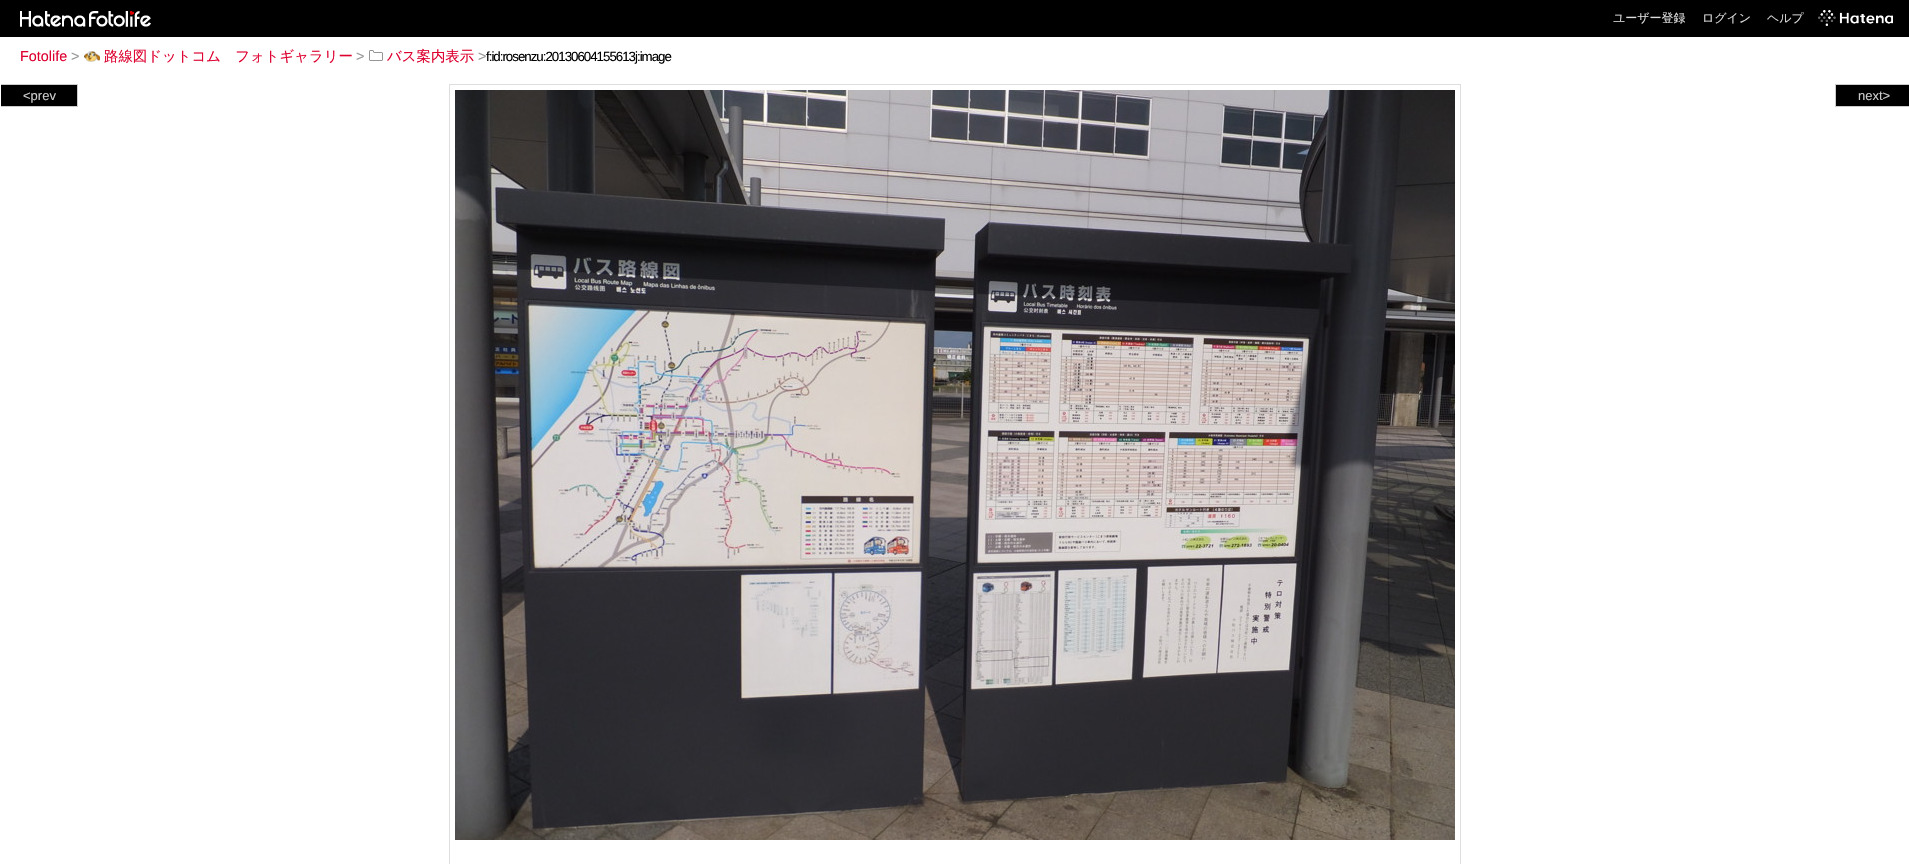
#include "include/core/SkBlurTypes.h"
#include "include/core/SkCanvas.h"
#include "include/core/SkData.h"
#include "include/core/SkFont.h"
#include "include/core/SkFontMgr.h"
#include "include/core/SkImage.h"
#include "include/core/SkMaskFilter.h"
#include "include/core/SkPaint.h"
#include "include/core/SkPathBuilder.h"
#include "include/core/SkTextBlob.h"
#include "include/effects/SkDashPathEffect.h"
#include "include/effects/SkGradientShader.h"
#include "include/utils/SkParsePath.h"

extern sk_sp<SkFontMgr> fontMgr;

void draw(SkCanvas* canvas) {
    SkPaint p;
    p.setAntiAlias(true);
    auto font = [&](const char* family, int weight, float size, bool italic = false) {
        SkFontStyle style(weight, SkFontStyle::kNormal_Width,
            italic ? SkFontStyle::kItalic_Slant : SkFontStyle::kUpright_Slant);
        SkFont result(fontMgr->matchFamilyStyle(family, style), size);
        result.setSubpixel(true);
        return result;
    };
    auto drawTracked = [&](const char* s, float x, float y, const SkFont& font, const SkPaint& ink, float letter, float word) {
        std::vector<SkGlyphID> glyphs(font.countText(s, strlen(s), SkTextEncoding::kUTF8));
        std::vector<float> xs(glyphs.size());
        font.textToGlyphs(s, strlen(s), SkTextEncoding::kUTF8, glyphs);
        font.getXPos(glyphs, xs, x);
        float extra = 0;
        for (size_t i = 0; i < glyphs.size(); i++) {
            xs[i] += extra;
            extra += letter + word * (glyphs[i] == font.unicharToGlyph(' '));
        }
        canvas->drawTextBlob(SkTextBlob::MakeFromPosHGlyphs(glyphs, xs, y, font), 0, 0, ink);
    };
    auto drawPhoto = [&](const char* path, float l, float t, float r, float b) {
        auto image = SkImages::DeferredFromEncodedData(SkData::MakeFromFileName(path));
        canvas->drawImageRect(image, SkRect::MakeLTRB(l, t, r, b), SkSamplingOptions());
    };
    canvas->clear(0xFFFFFFFF);
    p.setColor(0xFF000000);
    canvas->drawRect(SkRect::MakeLTRB(0, 0, 1909, 37), p);
    drawPhoto("media/1.png", 20, 11, 86, 27);
    drawPhoto("media/2.png", 89, 11, 151, 27);
    auto font1 = font("WenQuanYi Zen Hei", 500, 12);
    p.setColor(0xFFDDDDDD);
    {
        const struct { const char* s; float x, y; } items[] = {
            {"ユーザー登録", 1613, 22},
            {"ログイン", 1702, 22},
            {"ヘルプ", 1767, 22},
        };
        for (auto [s, x, y] : items) {
            canvas->drawString(s, x, y, font1, p);
        }
    }
    drawPhoto("media/3.png", 1818, 10, 1893, 26);
    auto font2 = font("Liberation Sans", 400, 14.4f);
    p.setColor(0xFFDE002F);
    canvas->drawString("Fotolife", 20, 61, font2, p);
    p.setColor(0xFF999999);
    canvas->drawString(">", 71, 61, font2, p);
    drawPhoto("media/4.png", 84, 51, 100, 62);
    auto font3 = font("WenQuanYi Zen Hei", 500, 14.4f);
    p.setColor(0xFFDE002F);
    canvas->drawString("路線図ドットコム　フォトギャラリー", 104, 61, font3, p);
    p.setColor(0xFF999999);
    canvas->drawString(">", 356, 61, font2, p);
    drawPhoto("media/5.png", 369, 50, 383, 61);
    p.setColor(0xFFDE002F);
    canvas->drawString("バス案内表示", 387, 61, font3, p);
    p.setColor(0xFF999999);
    canvas->drawString(">", 478, 61, font2, p);
    auto font4 = font("Liberation Sans", 400, 13.3f);
    p.setColor(0xFF000000);
    drawTracked("f:id:rosenzu:20130604155613j:image", 486, 61, font4, p, -1, 0);
    {
        const struct { float l, t, r, b; SkColor color; } items[] = {
            {1, 85, 77, 106, 0xFF000000},
            {1, 84, 78, 85, 0xFFCCCCCC},
            {77, 84, 78, 107, 0xFFCCCCCC},
            {1, 106, 78, 107, 0xFFCCCCCC},
        };
        for (auto [l, t, r, b, color] : items) {
            p.setColor(color);
            canvas->drawRect(SkRect::MakeLTRB(l, t, r, b), p);
        }
    }
    auto font5 = font("Liberation Sans", 400, 13);
    canvas->drawString("<prev", 23, 100, font5, p);
    p.setStyle(SkPaint::kStroke_Style);
    p.setStrokeWidth(1);
    p.setColor(0xFFDEDEDE);
    canvas->drawRect(SkRect::MakeLTRB(449.5f, 84.5f, 1460.5f, 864.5f), p);
    drawPhoto("media/6.png", 455, 90, 1455, 840);
    p.setStyle(SkPaint::kFill_Style);
    {
        const struct { float l, t, r, b; SkColor color; } items[] = {
            {1836, 85, 1909, 106, 0xFF000000},
            {1835, 84, 1909, 85, 0xFFCCCCCC},
            {1835, 106, 1909, 107, 0xFFCCCCCC},
            {1835, 84, 1836, 107, 0xFFCCCCCC},
        };
        for (auto [l, t, r, b, color] : items) {
            p.setColor(color);
            canvas->drawRect(SkRect::MakeLTRB(l, t, r, b), p);
        }
    }
    canvas->drawString("next>", 1858, 100, font5, p);
}
